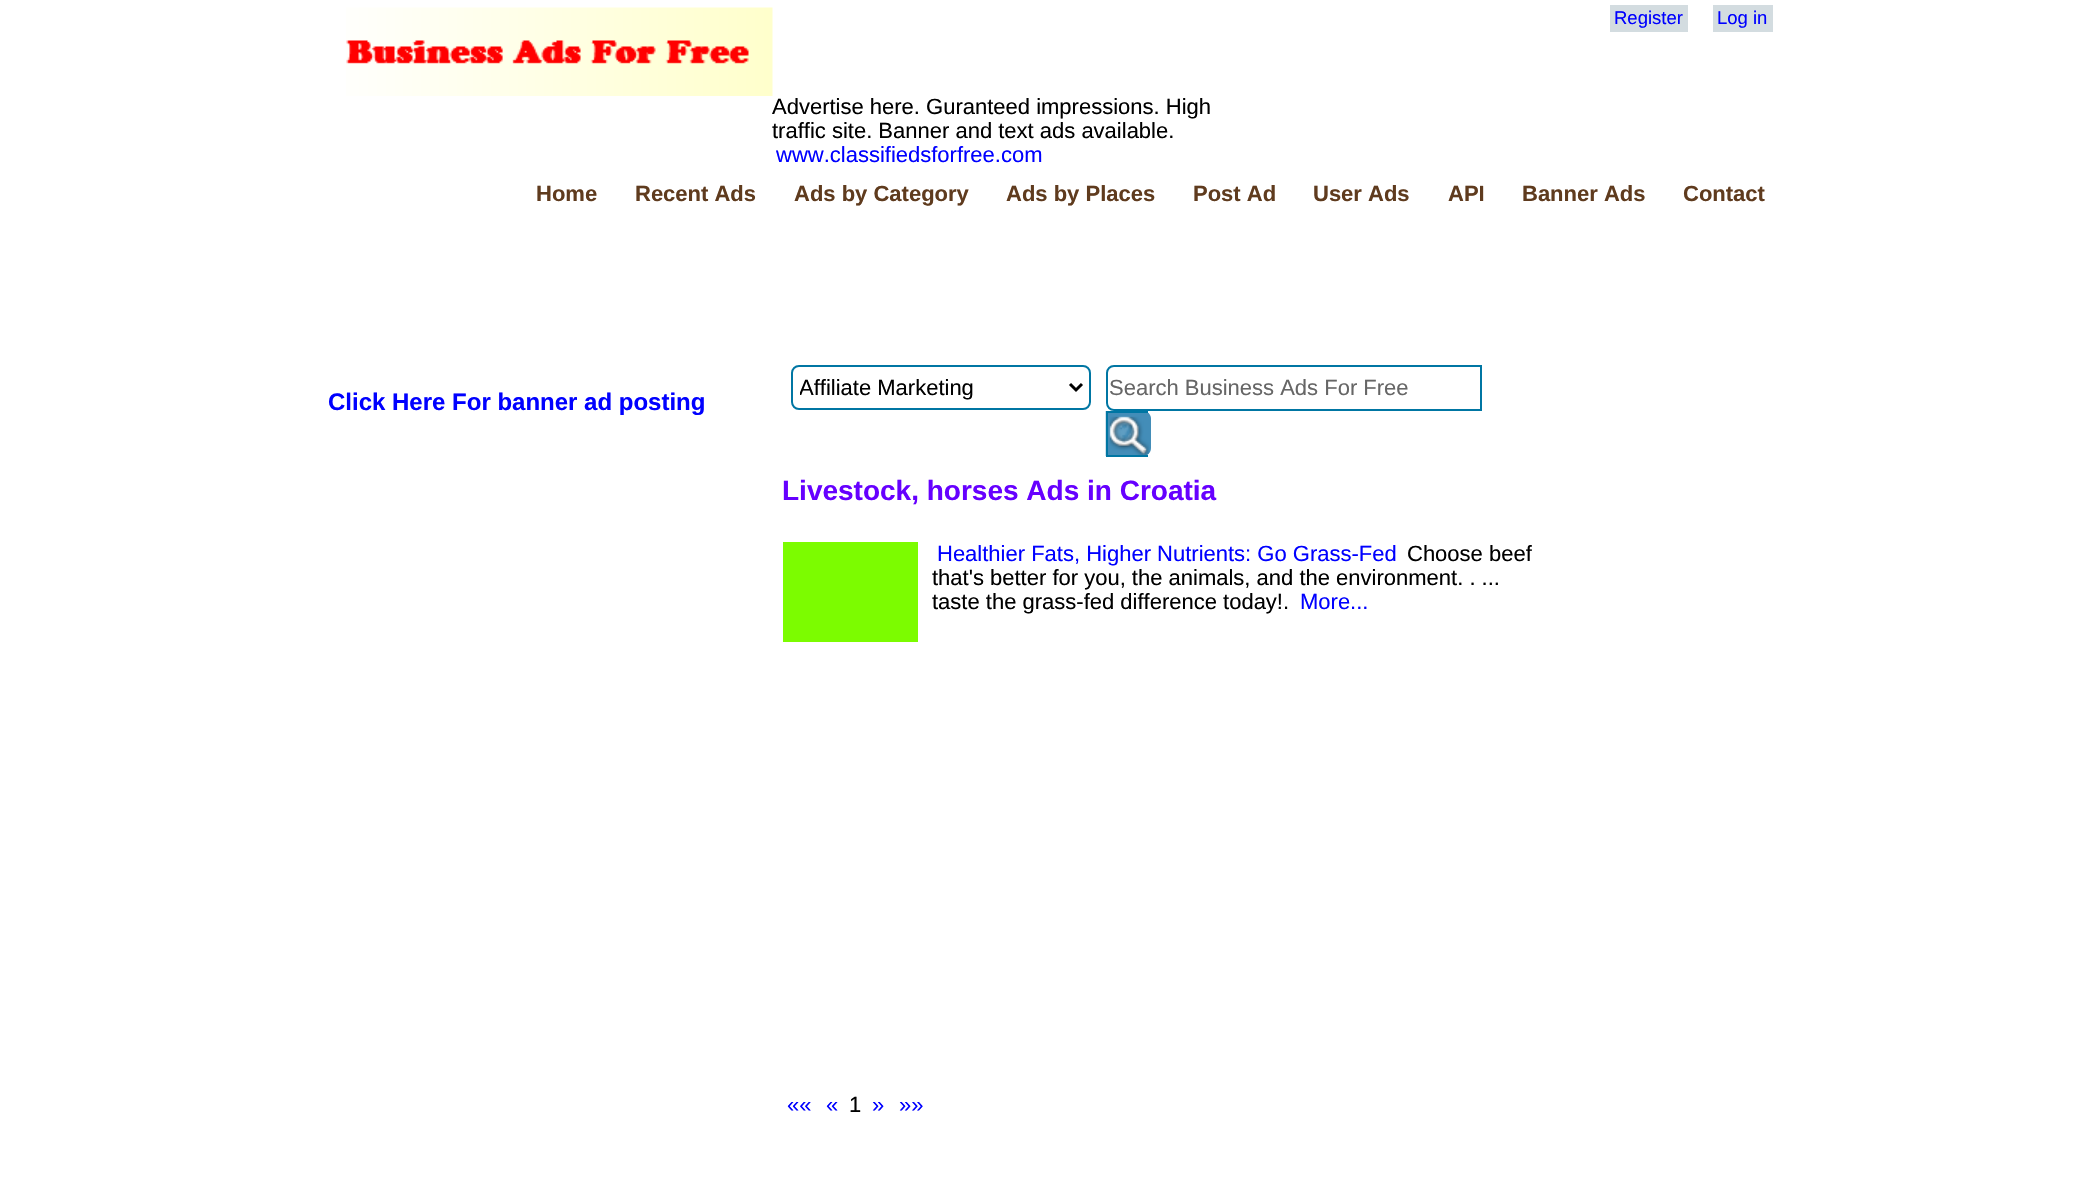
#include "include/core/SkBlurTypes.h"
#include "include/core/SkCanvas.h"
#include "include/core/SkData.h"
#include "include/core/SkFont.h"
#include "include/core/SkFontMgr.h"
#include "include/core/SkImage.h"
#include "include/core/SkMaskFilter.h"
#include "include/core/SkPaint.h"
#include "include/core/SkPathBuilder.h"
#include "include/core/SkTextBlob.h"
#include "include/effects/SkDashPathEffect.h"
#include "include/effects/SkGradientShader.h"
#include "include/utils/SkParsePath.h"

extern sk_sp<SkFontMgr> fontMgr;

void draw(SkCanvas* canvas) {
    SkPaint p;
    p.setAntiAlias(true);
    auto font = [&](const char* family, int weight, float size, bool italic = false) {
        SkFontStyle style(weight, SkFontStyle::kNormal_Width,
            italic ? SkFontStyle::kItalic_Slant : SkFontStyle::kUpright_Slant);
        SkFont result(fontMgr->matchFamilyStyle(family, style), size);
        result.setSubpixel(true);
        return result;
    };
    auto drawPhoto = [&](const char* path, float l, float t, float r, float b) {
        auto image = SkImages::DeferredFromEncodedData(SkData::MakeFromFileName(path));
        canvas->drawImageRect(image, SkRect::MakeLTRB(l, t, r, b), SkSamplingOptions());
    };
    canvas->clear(0xFFFFFFFF);
    drawPhoto("media/1.png", 346, 7, 773, 96);
    p.setColor(0xFFD3DCE0);
    canvas->drawRect(SkRect::MakeLTRB(1610, 5, 1688, 32), p);
    auto font1 = font("Liberation Sans", 400, 18.5f);
    p.setColor(0xFF0000FF);
    canvas->drawString("Register", 1614, 24, font1, p);
    p.setColor(0xFFD3DCE0);
    canvas->drawRect(SkRect::MakeLTRB(1713, 5, 1773, 32), p);
    p.setColor(0xFF0000FF);
    canvas->drawString("Log in", 1717, 24, font1, p);
    auto font2 = font("Liberation Sans", 400, 22);
    p.setColor(0xFF000000);
    canvas->drawString("Advertise here. Guranteed impressions. High", 772, 114, font2, p);
    canvas->drawString("traffic site. Banner and text ads available.", 772, 138, font2, p);
    p.setColor(0xFF0000FF);
    canvas->drawString("www.classifiedsforfree.com", 776, 162, font2, p);
    auto font3 = font("Liberation Sans", 700, 22);
    p.setColor(0xFF5F3B1E);
    {
        const struct { const char* s; float x, y; } items[] = {
            {"Home", 536, 201},
            {"Recent Ads", 635, 201},
            {"Ads by Category", 794, 201},
            {"Ads by Places", 1006, 201},
            {"Post Ad", 1193, 201},
            {"User Ads", 1313, 201},
            {"API", 1448, 201},
            {"Banner Ads", 1522, 201},
            {"Contact", 1683, 201},
        };
        for (auto [s, x, y] : items) {
            canvas->drawString(s, x, y, font3, p);
        }
    }
    auto font4 = font("Liberation Sans", 700, 24);
    p.setColor(0xFF0000FF);
    canvas->drawString("Click Here For banner ad posting", 328, 410, font4, p);
    p.setStyle(SkPaint::kStroke_Style);
    p.setStrokeWidth(2);
    p.setColor(0xFF0076A3);
    canvas->drawRoundRect(SkRect::MakeLTRB(792, 366, 1090, 409), 7, 7, p);
    p.setStrokeWidth(3);
    p.setColor(0xFF000000);
    canvas->drawPath(SkPathBuilder().moveTo(1070, 384).lineTo(1076, 390).lineTo(1082, 384).detach(), p);
    canvas->save();
    canvas->clipRect(SkRect::MakeLTRB(800, 374, 1064, 401));
    p.setStyle(SkPaint::kFill_Style);
    canvas->drawString("Affiliate Marketing", 799, 395, font2, p);
    canvas->restore();
    p.setStyle(SkPaint::kStroke_Style);
    p.setStrokeWidth(2);
    p.setColor(0xFF0076A3);
    canvas->drawPath(SkPathBuilder().moveTo(1114, 366).lineTo(1481, 366).lineTo(1481, 410).lineTo(1114, 410).cubicTo(1110, 410, 1107, 407, 1107, 403).lineTo(1107, 373).cubicTo(1107, 369, 1110, 366, 1114, 366).close().detach(), p);
    p.setStyle(SkPaint::kFill_Style);
    p.setColor(0xFF666666);
    canvas->drawString("Search Business Ads For Free", 1109, 395, font2, p);
    p.setColor(0xFF438DB8);
    canvas->drawPath(SkPathBuilder().moveTo(1106, 411).lineTo(1143, 411).cubicTo(1147.5f, 411, 1151, 414.5f, 1151, 419).lineTo(1151, 448).cubicTo(1151, 452.5f, 1147.5f, 456, 1143, 456).lineTo(1106, 456).close().detach(), p);
    drawPhoto("media/2.png", 1105, 411, 1151, 456);
    {
        const struct { float l, t, r, b; SkColor color; } items[] = {
            {1106, 411, 1148, 413, 0xFF0076A3},
            {1106, 455, 1148, 457, 0xFF0076A3},
            {1106, 411, 1108, 456, 0xFF0076A3},
        };
        for (auto [l, t, r, b, color] : items) {
            p.setColor(color);
            canvas->drawRect(SkRect::MakeLTRB(l, t, r, b), p);
        }
    }
    auto font5 = font("Liberation Sans", 700, 28);
    p.setColor(0xFF6600FF);
    canvas->drawString("Livestock, horses Ads in Croatia", 782, 500, font5, p);
    p.setColor(0xFF7CFC00);
    canvas->drawRect(SkRect::MakeLTRB(783, 542, 918, 642), p);
    p.setColor(0xFF0000FF);
    canvas->drawString("Healthier Fats, Higher Nutrients: Go Grass-Fed", 937, 561, font2, p);
    p.setColor(0xFF000000);
    {
        const struct { const char* s; float x, y; } items[] = {
            {"Choose beef", 1407, 561},
            {"that's better for you, the animals, and the environment. . ...", 932, 585},
            {"taste the grass-fed difference today!.", 932, 609},
        };
        for (auto [s, x, y] : items) {
            canvas->drawString(s, x, y, font2, p);
        }
    }
    p.setColor(0xFF0000FF);
    {
        const struct { const char* s; float x, y; } items[] = {
            {"More...", 1300, 609},
            {"««", 787, 1112},
            {"«", 826, 1112},
        };
        for (auto [s, x, y] : items) {
            canvas->drawString(s, x, y, font2, p);
        }
    }
    p.setColor(0xFF000000);
    canvas->drawString("1", 849, 1112, font2, p);
    p.setColor(0xFF0000FF);
    canvas->drawString("»", 872, 1112, font2, p);
    canvas->drawString("»»", 899, 1112, font2, p);
}
